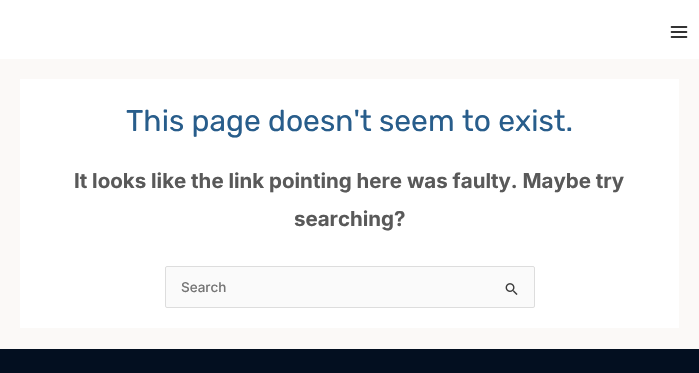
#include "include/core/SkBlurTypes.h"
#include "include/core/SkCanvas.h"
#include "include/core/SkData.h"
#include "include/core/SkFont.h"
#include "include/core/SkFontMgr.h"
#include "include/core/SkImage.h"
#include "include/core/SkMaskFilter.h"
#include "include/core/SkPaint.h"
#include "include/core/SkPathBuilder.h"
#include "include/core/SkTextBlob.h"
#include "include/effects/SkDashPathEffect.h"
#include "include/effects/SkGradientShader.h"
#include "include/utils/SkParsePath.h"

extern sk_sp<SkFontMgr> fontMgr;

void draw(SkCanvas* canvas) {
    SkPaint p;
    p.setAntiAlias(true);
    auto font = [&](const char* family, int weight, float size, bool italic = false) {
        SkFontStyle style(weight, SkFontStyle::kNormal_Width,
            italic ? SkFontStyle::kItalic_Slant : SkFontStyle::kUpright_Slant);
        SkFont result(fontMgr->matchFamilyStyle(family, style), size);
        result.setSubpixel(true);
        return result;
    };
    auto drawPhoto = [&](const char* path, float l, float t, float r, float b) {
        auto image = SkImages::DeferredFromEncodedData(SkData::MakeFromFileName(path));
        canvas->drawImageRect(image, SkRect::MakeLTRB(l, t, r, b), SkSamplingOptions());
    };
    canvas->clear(0xFFFBF9F7);
    p.setColor(0xFFFFFFFF);
    canvas->drawRect(SkRect::MakeLTRB(0, 0, 699, 59), p);
    drawPhoto("media/1.png", 670, 26, 688, 38);
    canvas->drawRect(SkRect::MakeLTRB(20, 79, 679, 328), p);
    auto font1 = font("Rubik", 400, 30);
    p.setColor(0xFF285D8B);
    canvas->drawString("This page doesn't seem to exist.", 126, 131, font1, p);
    auto font2 = font("Inter", 700, 20.5f);
    p.setColor(0xFF595959);
    canvas->drawString("It looks like the link pointing here was faulty. Maybe try", 74, 188, font2, p);
    canvas->drawString("searching?", 294, 226, font2, p);
    p.setColor(0xFFFAFAFA);
    canvas->drawRoundRect(SkRect::MakeLTRB(165.5f, 266.5f, 534.5f, 307.5f), 1.5f, 1.5f, p);
    p.setStyle(SkPaint::kStroke_Style);
    p.setStrokeWidth(1);
    p.setColor(0xFFDDDDDD);
    canvas->drawRoundRect(SkRect::MakeLTRB(165.5f, 266.5f, 534.5f, 307.5f), 1.5f, 1.5f, p);
    auto font3 = font("Inter", 500, 13.5f);
    p.setStyle(SkPaint::kFill_Style);
    p.setColor(0xFF757575);
    canvas->drawString("Search", 181, 292, font3, p);
    drawPhoto("media/2.png", 505, 283, 518, 295);
    p.setColor(0xFF030F20);
    canvas->drawRect(SkRect::MakeLTRB(0, 349, 699, 373), p);
}
